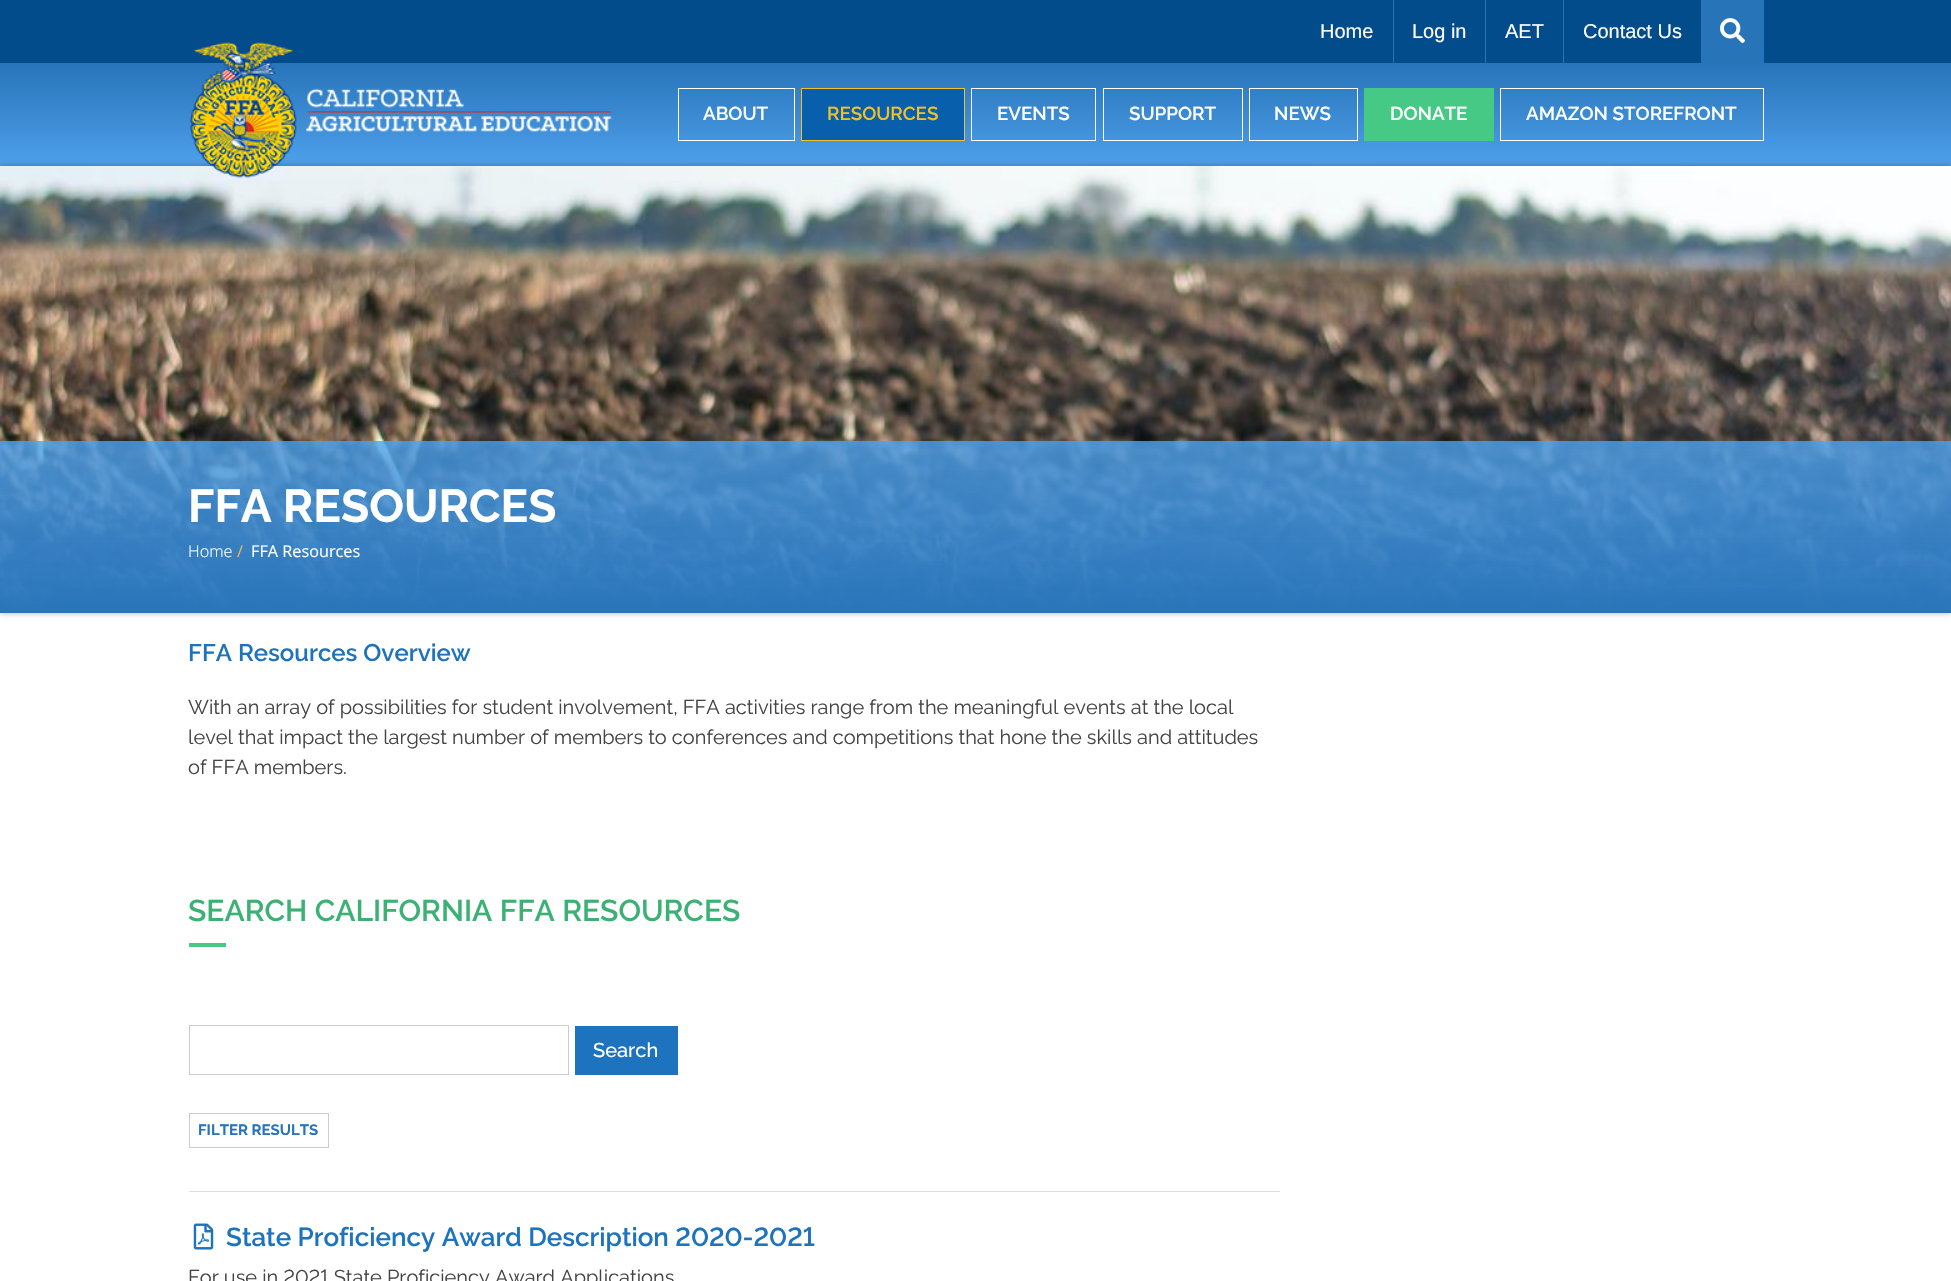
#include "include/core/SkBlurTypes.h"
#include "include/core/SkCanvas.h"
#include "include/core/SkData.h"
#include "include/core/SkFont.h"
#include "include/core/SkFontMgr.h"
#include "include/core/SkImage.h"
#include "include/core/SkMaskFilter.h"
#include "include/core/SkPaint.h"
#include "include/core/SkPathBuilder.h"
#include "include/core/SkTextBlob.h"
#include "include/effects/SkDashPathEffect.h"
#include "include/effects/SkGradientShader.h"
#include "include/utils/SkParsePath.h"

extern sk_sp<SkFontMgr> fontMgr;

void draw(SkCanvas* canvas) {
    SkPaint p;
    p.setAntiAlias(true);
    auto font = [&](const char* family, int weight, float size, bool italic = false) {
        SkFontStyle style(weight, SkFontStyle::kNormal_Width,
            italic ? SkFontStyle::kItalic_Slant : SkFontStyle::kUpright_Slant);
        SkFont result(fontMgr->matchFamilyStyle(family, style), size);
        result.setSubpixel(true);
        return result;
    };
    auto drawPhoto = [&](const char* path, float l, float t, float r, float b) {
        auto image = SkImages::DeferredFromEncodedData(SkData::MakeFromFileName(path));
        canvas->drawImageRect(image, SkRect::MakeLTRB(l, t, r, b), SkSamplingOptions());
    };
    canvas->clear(0xFFFFFFFF);
    p.setColor(0xFF034C8C);
    canvas->drawRect(SkRect::MakeLTRB(0, 0, 1951, 63), p);
    auto font1 = font("Liberation Sans", 400, 20);
    p.setColor(0xFFFFFFFF);
    canvas->drawString("Home", 1320, 38, font1, p);
    p.setColor(0xFF2874B9);
    canvas->drawRect(SkRect::MakeLTRB(1393, 0, 1394, 63), p);
    p.setColor(0xFFFFFFFF);
    canvas->drawString("Log in", 1412, 38, font1, p);
    p.setColor(0xFF2874B9);
    canvas->drawRect(SkRect::MakeLTRB(1485, 0, 1486, 63), p);
    p.setColor(0xFFFFFFFF);
    canvas->drawString("AET", 1505, 38, font1, p);
    p.setColor(0xFF2874B9);
    canvas->drawRect(SkRect::MakeLTRB(1563, 0, 1564, 63), p);
    p.setColor(0xFFFFFFFF);
    canvas->drawString("Contact Us", 1583, 38, font1, p);
    p.setColor(0xFF2874B9);
    canvas->drawRect(SkRect::MakeLTRB(1701, 0, 1764, 63), p);
    drawPhoto("media/1.png", 1720, 18, 1745, 44);
    {
        const SkColor colors[] = {0xFF2874B9, 0xFF3A89D1, 0xFF4EA1EC};
        const float stops[] = {0, 0.5f, 1};
        const SkPoint ends[] = {{976, 62}, {976, 166}};
        p.setShader(SkGradientShader::MakeLinear(ends, colors, stops, 3, SkTileMode::kClamp));
        p.setAlpha(255);
    }
    canvas->drawRect(SkRect::MakeLTRB(0, 63, 1951, 166), p);
    p.setShader(nullptr);
    p.setColor(0x4D000000);
    p.setMaskFilter(SkMaskFilter::MakeBlur(kNormal_SkBlurStyle, 3));
    canvas->drawRect(SkRect::MakeLTRB(0, 166, 1951, 613), p);
    p.setMaskFilter(nullptr);
    drawPhoto("media/3.png", 0, 166, 1951, 608);
    drawPhoto("media/2.png", 190, 41, 612, 178);
    p.setStyle(SkPaint::kStroke_Style);
    p.setStrokeWidth(1);
    p.setColor(0xFFFFFFFF);
    canvas->drawRect(SkRect::MakeLTRB(678.5f, 88.5f, 794.5f, 140.5f), p);
    auto font2 = font("Raleway", 600, 18.75f);
    p.setStyle(SkPaint::kFill_Style);
    canvas->drawString("ABOUT", 703, 120, font2, p);
    p.setColor(0xFF085FAB);
    canvas->drawRect(SkRect::MakeLTRB(801.5f, 88.5f, 964.5f, 140.5f), p);
    p.setStyle(SkPaint::kStroke_Style);
    p.setColor(0xFFF2C029);
    canvas->drawRect(SkRect::MakeLTRB(801.5f, 88.5f, 964.5f, 140.5f), p);
    p.setStyle(SkPaint::kFill_Style);
    canvas->drawString("RESOURCES", 827, 120, font2, p);
    p.setStyle(SkPaint::kStroke_Style);
    p.setColor(0xFFFFFFFF);
    canvas->drawRect(SkRect::MakeLTRB(971.5f, 88.5f, 1095.5f, 140.5f), p);
    p.setStyle(SkPaint::kFill_Style);
    canvas->drawString("EVENTS", 997, 120, font2, p);
    p.setStyle(SkPaint::kStroke_Style);
    canvas->drawRect(SkRect::MakeLTRB(1103.5f, 88.5f, 1242.5f, 140.5f), p);
    p.setStyle(SkPaint::kFill_Style);
    canvas->drawString("SUPPORT", 1129, 120, font2, p);
    p.setStyle(SkPaint::kStroke_Style);
    canvas->drawRect(SkRect::MakeLTRB(1249.5f, 88.5f, 1357.5f, 140.5f), p);
    p.setStyle(SkPaint::kFill_Style);
    canvas->drawString("NEWS", 1274, 120, font2, p);
    p.setColor(0xFF47C986);
    canvas->drawRect(SkRect::MakeLTRB(1364, 88, 1494, 141), p);
    p.setColor(0xFFFFFFFF);
    canvas->drawString("DONATE", 1390, 120, font2, p);
    p.setStyle(SkPaint::kStroke_Style);
    canvas->drawRect(SkRect::MakeLTRB(1500.5f, 88.5f, 1763.5f, 140.5f), p);
    p.setStyle(SkPaint::kFill_Style);
    canvas->drawString("AMAZON STOREFRONT", 1526, 120, font2, p);
    {
        const SkColor colors[] = {0xFF2874B9, 0xCC4EA1EC};
        const float stops[] = {0, 1};
        const SkPoint ends[] = {{976, 613}, {976, 441}};
        p.setShader(SkGradientShader::MakeLinear(ends, colors, stops, 2, SkTileMode::kClamp));
        p.setAlpha(255);
    }
    canvas->drawRect(SkRect::MakeLTRB(0, 441, 1951, 613), p);
    auto font3 = font("Raleway", 700, 46);
    p.setShader(nullptr);
    p.setColor(0xFFFFFFFF);
    canvas->drawString("FFA RESOURCES", 188, 522, font3, p);
    auto font4 = font("Open Sans", 300, 16.25f);
    canvas->drawString("Home", 188, 557, font4, p);
    auto font5 = font("Open Sans", 400, 16.25f);
    p.setColor(0xFFEFB85B);
    canvas->drawString("/", 237, 557, font5, p);
    p.setColor(0xFFFFFFFF);
    canvas->drawString("FFA Resources", 251, 557, font5, p);
    auto font6 = font("Raleway", 600, 24);
    p.setColor(0xFF1D73BE);
    canvas->drawString("FFA Resources Overview", 188, 661, font6, p);
    auto font7 = font("Raleway", 400, 20);
    p.setColor(0xFF444444);
    {
        const struct { const char* s; float x, y; } items[] = {
            {"With an array of possibilities for student involvement, FFA activities range from the meaningful events at the local", 188, 714},
            {"level that impact the largest number of members to conferences and competitions that hone the skills and attitudes", 188, 744},
            {"of FFA members.", 188, 774},
        };
        for (auto [s, x, y] : items) {
            canvas->drawString(s, x, y, font7, p);
        }
    }
    auto font8 = font("Raleway", 600, 30);
    p.setColor(0xFF3BB174);
    canvas->drawString("SEARCH CALIFORNIA FFA RESOURCES", 188, 921, font8, p);
    p.setColor(0xFF47C986);
    canvas->drawRect(SkRect::MakeLTRB(189, 943, 226, 947), p);
    p.setStyle(SkPaint::kStroke_Style);
    p.setColor(0xFFCCCCCC);
    canvas->drawRect(SkRect::MakeLTRB(189.5f, 1025.5f, 568.5f, 1074.5f), p);
    p.setStyle(SkPaint::kFill_Style);
    p.setColor(0xFF1D73BE);
    canvas->drawRect(SkRect::MakeLTRB(575, 1026, 678, 1075), p);
    auto font9 = font("Raleway", 500, 20);
    p.setColor(0xFFFFFFFF);
    canvas->drawString("Search", 593, 1057, font9, p);
    p.setStyle(SkPaint::kStroke_Style);
    p.setColor(0xFFCCCCCC);
    canvas->drawRect(SkRect::MakeLTRB(189.5f, 1113.5f, 328.5f, 1147.5f), p);
    auto font10 = font("Raleway", 700, 15);
    p.setStyle(SkPaint::kFill_Style);
    p.setColor(0xFF2874B9);
    canvas->drawString("FILTER RESULTS", 198, 1135, font10, p);
    p.setColor(0xFFDDDDDD);
    canvas->drawRect(SkRect::MakeLTRB(189, 1191, 1280, 1192), p);
    drawPhoto("media/4.png", 193, 1223, 214, 1250);
    auto font11 = font("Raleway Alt", 600, 26);
    p.setColor(0xFF1D73BE);
    canvas->drawString("State Proficiency Award Description 2020-2021", 226, 1246, font11, p);
    auto font12 = font("Raleway Alt", 400, 20);
    p.setColor(0xFF444444);
    canvas->drawString("For use in 2021 State Proficiency Award Applications", 188, 1284, font12, p);
}
